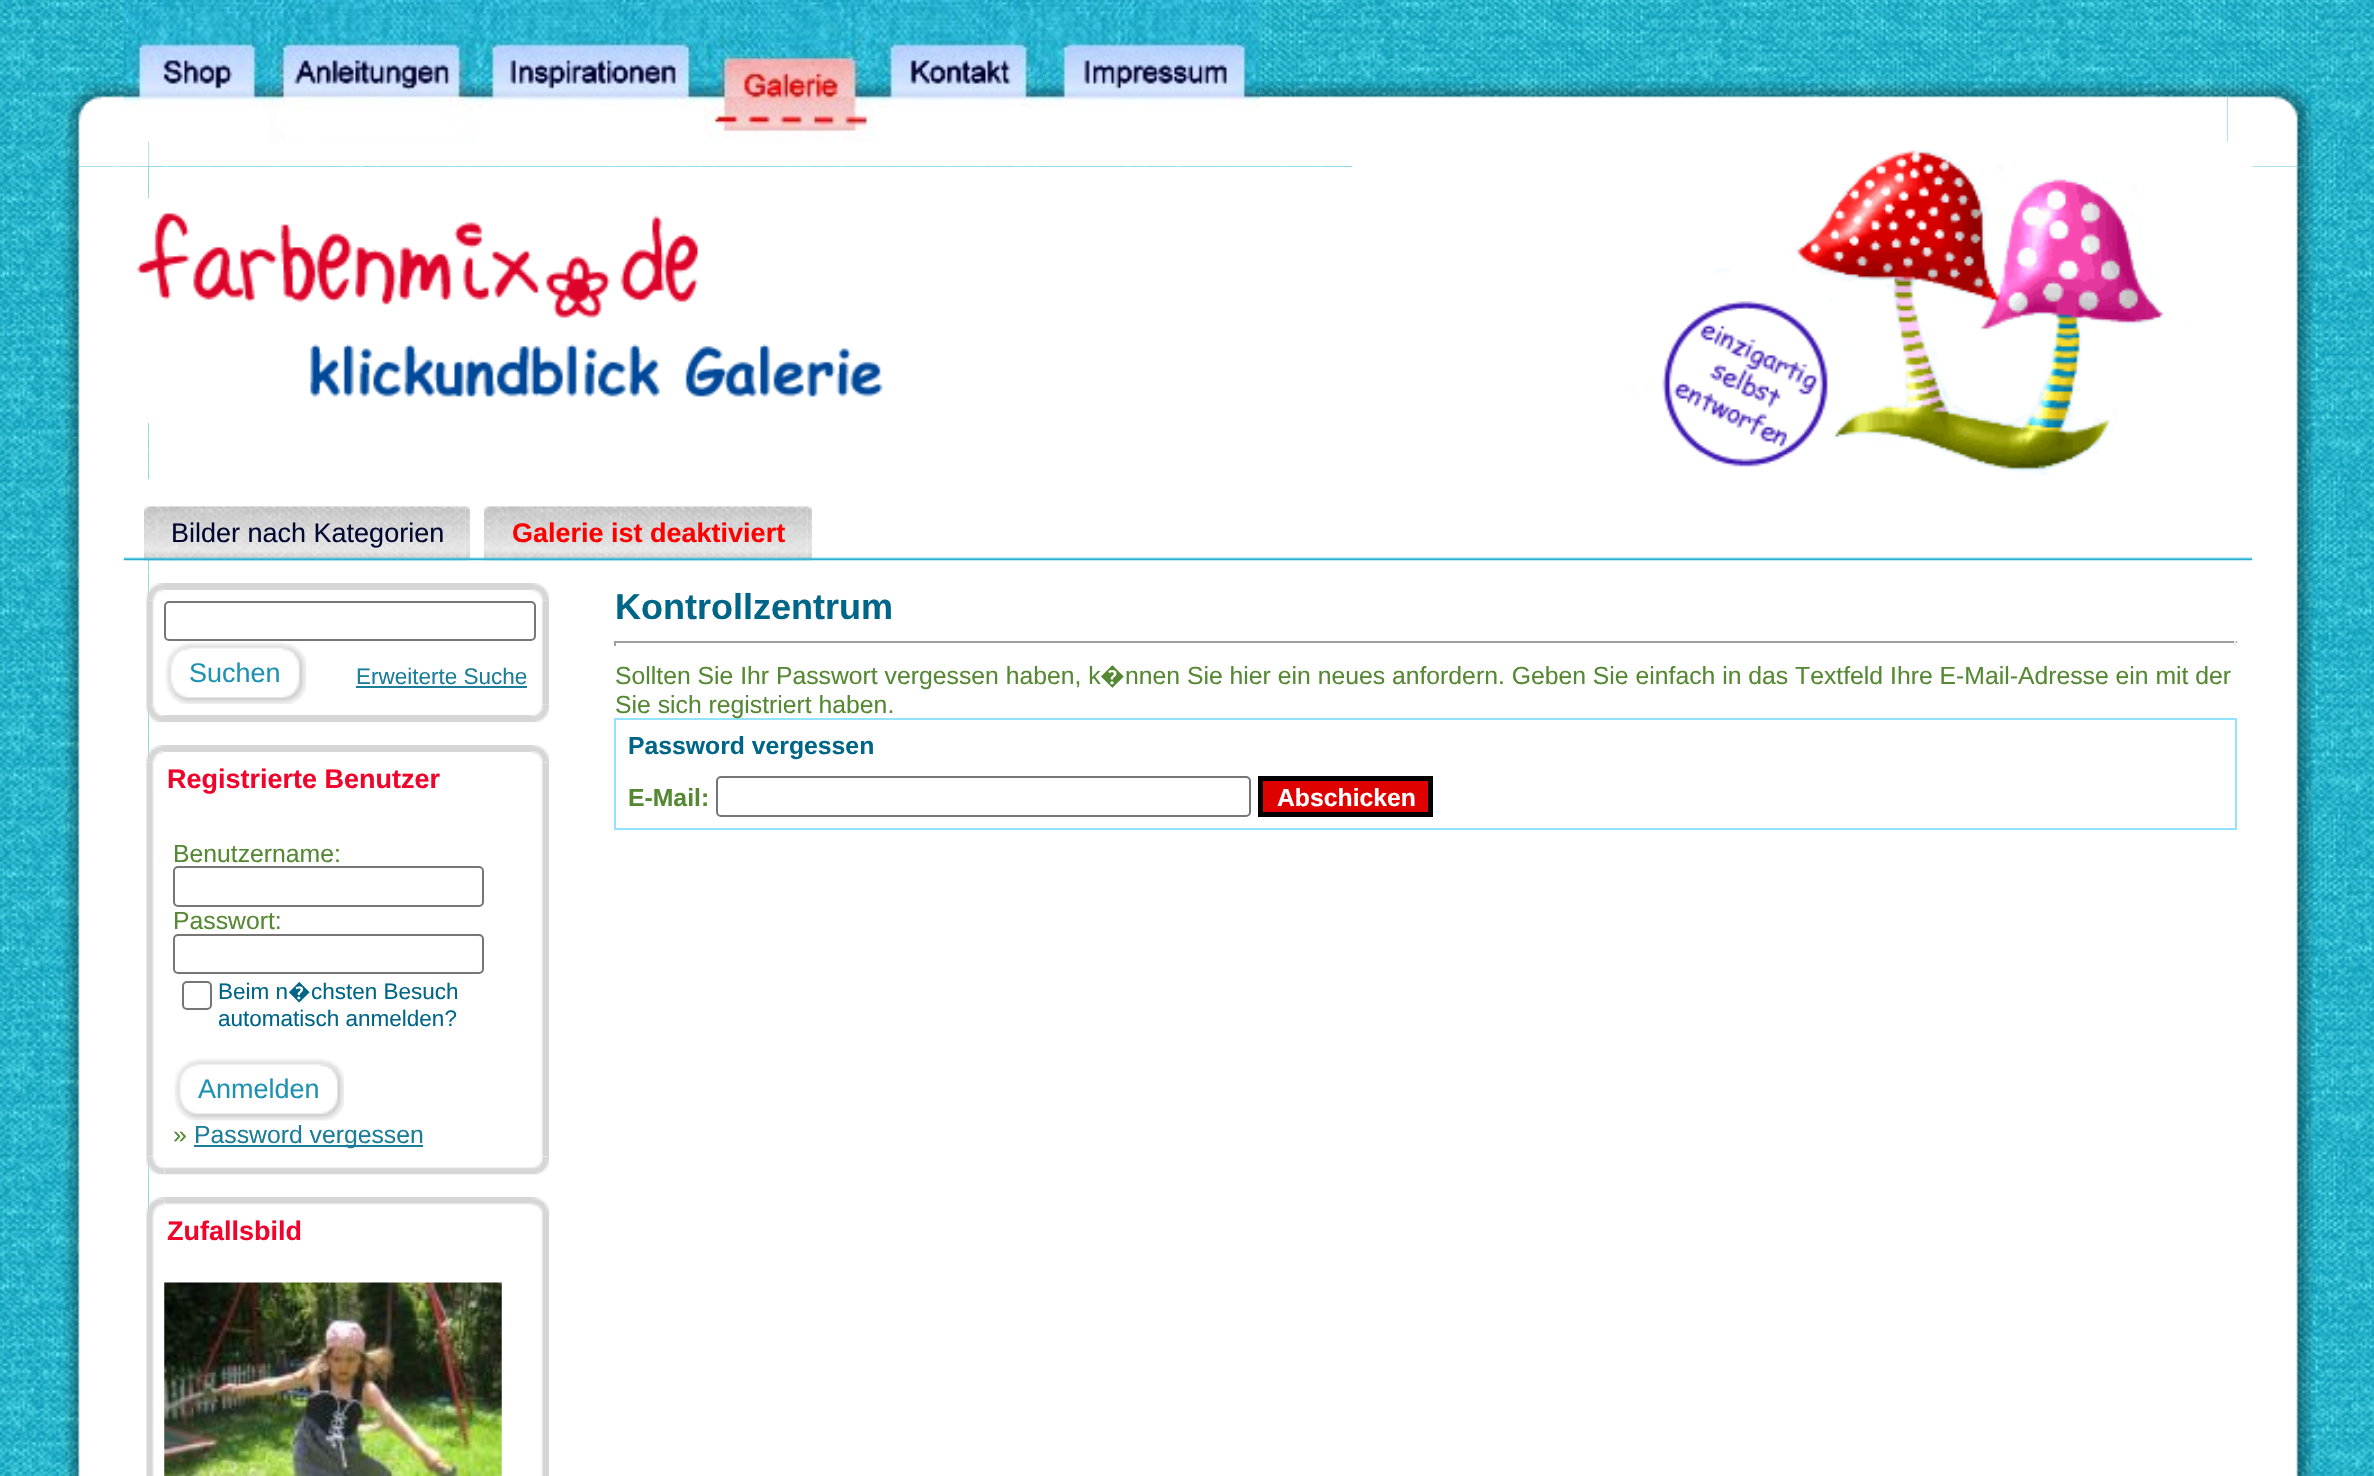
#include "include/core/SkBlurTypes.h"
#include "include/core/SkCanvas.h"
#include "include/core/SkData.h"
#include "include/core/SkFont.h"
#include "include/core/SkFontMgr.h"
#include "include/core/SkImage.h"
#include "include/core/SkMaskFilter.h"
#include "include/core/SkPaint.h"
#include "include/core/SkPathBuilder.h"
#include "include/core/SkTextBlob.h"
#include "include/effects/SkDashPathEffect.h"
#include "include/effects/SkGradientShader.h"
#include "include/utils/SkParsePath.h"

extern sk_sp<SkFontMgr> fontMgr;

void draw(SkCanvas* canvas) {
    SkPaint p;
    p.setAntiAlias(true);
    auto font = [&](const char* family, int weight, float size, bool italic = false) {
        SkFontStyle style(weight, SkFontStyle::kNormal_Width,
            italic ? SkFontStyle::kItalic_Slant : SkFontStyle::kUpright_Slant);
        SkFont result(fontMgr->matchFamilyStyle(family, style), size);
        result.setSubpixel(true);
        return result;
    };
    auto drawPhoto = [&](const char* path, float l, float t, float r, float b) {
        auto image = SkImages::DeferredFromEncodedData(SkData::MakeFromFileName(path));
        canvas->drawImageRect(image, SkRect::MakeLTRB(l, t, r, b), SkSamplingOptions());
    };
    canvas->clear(0xFFFFFFFF);
    drawPhoto("media/1.png", 0, 0, 2374, 1476);
    drawPhoto("media/8.png", 63, 81, 149, 167);
    drawPhoto("media/10.png", 2227, 81, 2313, 167);
    drawPhoto("media/9.png", 148, 81, 2228, 167);
    drawPhoto("media/2.png", 123, 0, 268, 142);
    drawPhoto("media/3.png", 267, 0, 475, 142);
    drawPhoto("media/4.png", 474, 0, 705, 108);
    drawPhoto("media/5.png", 704, 0, 876, 142);
    drawPhoto("media/6.png", 875, 0, 1047, 108);
    drawPhoto("media/7.png", 1046, 0, 1260, 109);
    drawPhoto("media/11.png", 63, 166, 149, 1476);
    p.setColor(0xFFFFFFFF);
    canvas->drawRect(SkRect::MakeLTRB(149, 167, 2228, 1476), p);
    drawPhoto("media/12.png", 2228, 166, 2313, 1476);
    drawPhoto("media/13.png", 136, 198, 883, 423);
    drawPhoto("media/14.png", 1352, 141, 2253, 476);
    drawPhoto("media/15.png", 123, 479, 2253, 561);
    drawPhoto("media/16.png", 144, 506, 466, 561);
    drawPhoto("media/17.png", 465, 506, 470, 561);
    auto font1 = font("Liberation Sans", 400, 27);
    p.setColor(0xFF000730);
    canvas->drawString("Bilder nach Kategorien", 171, 542, font1, p);
    drawPhoto("media/18.png", 484, 506, 808, 561);
    drawPhoto("media/17.png", 807, 506, 812, 561);
    auto font2 = font("Liberation Sans", 700, 27);
    p.setColor(0xFFFF0000);
    canvas->drawString("Galerie ist deaktiviert", 512, 542, font2, p);
    drawPhoto("media/19.png", 146, 583, 165, 601);
    p.setColor(0xFFD6D6D6);
    canvas->drawRect(SkRect::MakeLTRB(164, 583, 531, 590), p);
    drawPhoto("media/20.png", 531, 583, 549, 601);
    drawPhoto("media/21.png", 146, 601, 154, 704);
    p.setStyle(SkPaint::kStroke_Style);
    p.setStrokeWidth(2);
    p.setColor(0xFF767676);
    canvas->drawRoundRect(SkRect::MakeLTRB(165, 602, 535, 640), 4, 4, p);
    drawPhoto("media/22.png", 165, 642, 275, 704);
    drawPhoto("media/23.png", 274, 642, 306, 704);
    p.setStyle(SkPaint::kFill_Style);
    p.setColor(0xFF1F92B2);
    canvas->drawString("Suchen", 189, 682, font1, p);
    auto font3 = font("Liberation Sans", 400, 22.5f);
    p.setColor(0xFF1B7D98);
    canvas->drawString("Erweiterte Suche", 356, 684, font3, p);
    canvas->drawRect(SkRect::MakeLTRB(356, 686, 527, 688), p);
    drawPhoto("media/24.png", 541, 601, 549, 704);
    drawPhoto("media/25.png", 146, 704, 165, 722);
    p.setColor(0xFFD6D6D6);
    canvas->drawRect(SkRect::MakeLTRB(164, 715, 531, 722), p);
    drawPhoto("media/26.png", 531, 704, 549, 722);
    drawPhoto("media/27.png", 146, 745, 165, 763);
    canvas->drawRect(SkRect::MakeLTRB(164, 745, 531, 752), p);
    drawPhoto("media/20.png", 531, 745, 549, 763);
    drawPhoto("media/32.png", 146, 1156, 165, 1175);
    drawPhoto("media/28.png", 146, 763, 154, 1157);
    p.setColor(0xFFF1042B);
    canvas->drawString("Registrierte Benutzer", 167, 788, font2, p);
    auto font4 = font("Liberation Sans", 400, 24.75f);
    p.setColor(0xFF558833);
    canvas->drawString("Benutzername:", 173, 862, font4, p);
    p.setStyle(SkPaint::kStroke_Style);
    p.setColor(0xFF767676);
    canvas->drawRoundRect(SkRect::MakeLTRB(174, 867, 483, 906), 4, 4, p);
    p.setStyle(SkPaint::kFill_Style);
    p.setColor(0xFF558833);
    canvas->drawString("Passwort:", 173, 929, font4, p);
    p.setStyle(SkPaint::kStroke_Style);
    p.setColor(0xFF767676);
    canvas->drawRoundRect(SkRect::MakeLTRB(174, 935, 483, 973), 4, 4, p);
    canvas->drawRoundRect(SkRect::MakeLTRB(183, 982, 211, 1009), 4, 4, p);
    p.setStyle(SkPaint::kFill_Style);
    p.setColor(0xFF006688);
    canvas->drawString("Beim n", 218, 999, font3, p);
    auto font5 = font("Noto Sans", 400, 22.5f);
    canvas->drawString("�", 288, 999, font5, p);
    canvas->drawString("chsten Besuch", 311, 999, font3, p);
    canvas->drawString("automatisch anmelden?", 218, 1026, font3, p);
    drawPhoto("media/29.png", 174, 1058, 313, 1121);
    drawPhoto("media/30.png", 312, 1058, 344, 1121);
    p.setColor(0xFF1F92B2);
    canvas->drawString("Anmelden", 198, 1098, font1, p);
    p.setColor(0xFF558833);
    canvas->drawString("»", 173, 1143, font4, p);
    p.setColor(0xFF1B7D98);
    canvas->drawRect(SkRect::MakeLTRB(194, 1145, 423, 1147), p);
    canvas->drawString("Password vergessen", 194, 1143, font4, p);
    drawPhoto("media/34.png", 531, 1156, 549, 1175);
    drawPhoto("media/31.png", 541, 763, 549, 1157);
    drawPhoto("media/33.png", 164, 1167, 531, 1175);
    drawPhoto("media/35.png", 146, 1197, 165, 1215);
    drawPhoto("media/36.png", 164, 1197, 531, 1205);
    drawPhoto("media/37.png", 531, 1197, 549, 1215);
    drawPhoto("media/38.png", 146, 1215, 154, 1476);
    p.setColor(0xFFF1042B);
    canvas->drawString("Zufallsbild", 167, 1240, font2, p);
    drawPhoto("media/39.png", 164, 1282, 502, 1476);
    drawPhoto("media/40.png", 541, 1215, 549, 1476);
    auto font6 = font("Liberation Sans", 700, 36);
    p.setColor(0xFF006688);
    canvas->drawString("Kontrollzentrum", 615, 619, font6, p);
    {
        const struct { float l, t, r, b; SkColor color; } items[] = {
            {614, 641, 2237, 643, 0xFF9F9F9F},
            {2234, 641, 2236, 646, 0xFFEEEEEE},
            {614, 641, 616, 646, 0xFF9F9F9F},
        };
        for (auto [l, t, r, b, color] : items) {
            p.setColor(color);
            canvas->drawRect(SkRect::MakeLTRB(l, t, r, b), p);
        }
    }
    p.setColor(0xFF558833);
    canvas->drawString("Sollten Sie Ihr Passwort vergessen haben, k", 615, 684, font4, p);
    auto font7 = font("Noto Sans", 400, 24.75f);
    canvas->drawString("�", 1100, 684, font7, p);
    canvas->drawString("nnen Sie hier ein neues anfordern. Geben Sie einfach in das Textfeld Ihre E-Mail-Adresse ein mit der", 1125, 684, font4, p);
    p.setStyle(SkPaint::kStroke_Style);
    p.setColor(0xFF91E3FF);
    canvas->drawRect(SkRect::MakeLTRB(615, 719, 2236, 829), p);
    p.setStyle(SkPaint::kFill_Style);
    p.setColor(0xFF558833);
    canvas->drawString("Sie sich registriert haben.", 615, 713, font4, p);
    auto font8 = font("Liberation Sans", 700, 24.75f);
    p.setColor(0xFF006688);
    canvas->drawString("Password vergessen", 628, 754, font8, p);
    p.setColor(0xFF558833);
    canvas->drawString("E-Mail:", 628, 806, font8, p);
    p.setStyle(SkPaint::kStroke_Style);
    p.setColor(0xFF767676);
    canvas->drawRoundRect(SkRect::MakeLTRB(717, 777, 1250, 816), 4, 4, p);
    p.setStyle(SkPaint::kFill_Style);
    p.setColor(0xFFDF0000);
    canvas->drawRect(SkRect::MakeLTRB(1260.5f, 778.5f, 1430.5f, 814.5f), p);
    p.setStyle(SkPaint::kStroke_Style);
    p.setStrokeWidth(5);
    p.setColor(0xFF000000);
    canvas->drawRect(SkRect::MakeLTRB(1260.5f, 778.5f, 1430.5f, 814.5f), p);
    p.setStyle(SkPaint::kFill_Style);
    p.setColor(0xFFFFFFFF);
    canvas->drawString("Abschicken", 1277, 806, font8, p);
}
